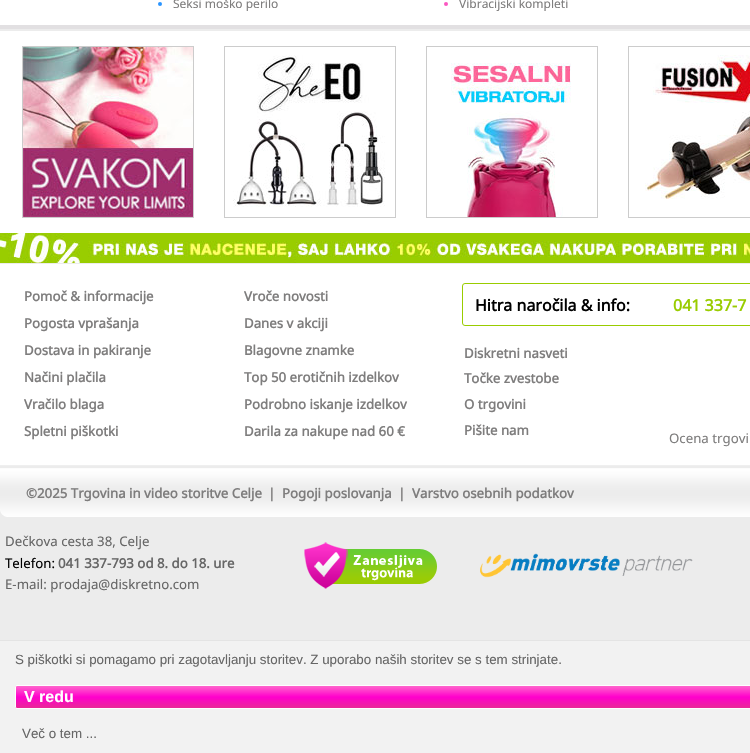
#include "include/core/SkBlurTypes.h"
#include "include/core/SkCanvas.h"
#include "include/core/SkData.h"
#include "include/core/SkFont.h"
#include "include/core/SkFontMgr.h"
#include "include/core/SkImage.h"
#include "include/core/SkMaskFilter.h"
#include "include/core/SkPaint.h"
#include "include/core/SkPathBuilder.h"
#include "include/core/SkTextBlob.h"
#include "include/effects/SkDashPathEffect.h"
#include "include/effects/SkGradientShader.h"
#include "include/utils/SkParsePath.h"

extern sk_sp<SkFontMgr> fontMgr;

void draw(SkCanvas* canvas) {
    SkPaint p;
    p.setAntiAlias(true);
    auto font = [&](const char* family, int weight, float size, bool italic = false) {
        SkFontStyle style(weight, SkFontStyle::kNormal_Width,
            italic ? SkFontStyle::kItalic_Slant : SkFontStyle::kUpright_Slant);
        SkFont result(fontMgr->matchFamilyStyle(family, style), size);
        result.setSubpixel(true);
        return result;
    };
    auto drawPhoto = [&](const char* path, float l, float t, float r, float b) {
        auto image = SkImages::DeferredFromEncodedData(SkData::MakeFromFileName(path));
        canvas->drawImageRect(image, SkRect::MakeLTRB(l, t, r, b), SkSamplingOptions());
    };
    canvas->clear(0xFFECECEC);
    p.setColor(0xFFFFFFFF);
    canvas->drawRect(SkRect::MakeLTRB(0, 0, 750, 25), p);
    p.setColor(0xFFE2E0E2);
    canvas->drawRect(SkRect::MakeLTRB(0, 25, 750, 29), p);
    p.setColor(0xFF2B95FF);
    canvas->drawCircle(160, 4, 2, p);
    auto font1 = font("Noto Sans", 400, 12);
    p.setColor(0xFF7E7D7D);
    canvas->drawString("Seksi moško perilo", 173, 8, font1, p);
    p.setColor(0xFFFB57C1);
    canvas->drawCircle(446, 4, 2, p);
    p.setColor(0xFF7E7D7D);
    canvas->drawString("Vibracijski kompleti", 459, 8, font1, p);
    p.setColor(0xFFFFFFFF);
    canvas->drawRect(SkRect::MakeLTRB(0, 31, 750, 233), p);
    p.setStyle(SkPaint::kStroke_Style);
    p.setStrokeWidth(1);
    p.setColor(0xFFCCCCCC);
    canvas->drawRect(SkRect::MakeLTRB(22.5f, 46.5f, 193.5f, 217.5f), p);
    canvas->drawRect(SkRect::MakeLTRB(224.5f, 46.5f, 395.5f, 217.5f), p);
    canvas->drawRect(SkRect::MakeLTRB(426.5f, 46.5f, 597.5f, 217.5f), p);
    canvas->drawRect(SkRect::MakeLTRB(628.5f, 46.5f, 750.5f, 217.5f), p);
    drawPhoto("media/1.png", 23, 47, 193, 217);
    drawPhoto("media/2.png", 233, 55, 385, 207);
    drawPhoto("media/3.png", 451, 63, 571, 217);
    drawPhoto("media/4.png", 645, 55, 750, 199);
    drawPhoto("media/5.png", 0, 233, 750, 263);
    drawPhoto("media/6.png", 0, 264, 750, 517);
    auto font2 = font("Noto Sans", 700, 13.25f);
    p.setStyle(SkPaint::kFill_Style);
    p.setColor(0xFF7E7D7D);
    {
        const struct { const char* s; float x, y; } items[] = {
            {"Pomoč & informacije", 24, 301},
            {"Pogosta vprašanja", 24, 328},
            {"Dostava in pakiranje", 24, 355},
            {"Načini plačila", 24, 382},
            {"Vračilo blaga", 24, 409},
            {"Spletni piškotki", 24, 436},
            {"Vroče novosti", 244, 301},
            {"Danes v akciji", 244, 328},
            {"Blagovne znamke", 244, 355},
            {"Top 50 erotičnih izdelkov", 244, 382},
            {"Podrobno iskanje izdelkov", 244, 409},
            {"Darila za nakupe nad 60 €", 244, 436},
        };
        for (auto [s, x, y] : items) {
            canvas->drawString(s, x, y, font2, p);
        }
    }
    p.setStyle(SkPaint::kStroke_Style);
    p.setColor(0xFF99CC00);
    canvas->drawRoundRect(SkRect::MakeLTRB(462.5f, 283.5f, 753.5f, 325.5f), 2.5f, 2.5f, p);
    auto font3 = font("Noto Sans", 700, 16);
    p.setStyle(SkPaint::kFill_Style);
    p.setColor(0xFF000000);
    canvas->drawString("Hitra naročila & info:", 475, 311, font3, p);
    p.setColor(0xFF99CC00);
    canvas->drawString("041 337-7", 673, 311, font3, p);
    p.setColor(0xFF7E7D7D);
    {
        const struct { const char* s; float x, y; } items[] = {
            {"Diskretni nasveti", 464, 358},
            {"Točke zvestobe", 464, 383},
            {"O trgovini", 464, 409},
            {"Pišite nam", 464, 435},
        };
        for (auto [s, x, y] : items) {
            canvas->drawString(s, x, y, font2, p);
        }
    }
    auto font4 = font("Noto Sans", 400, 13.25f);
    canvas->drawString("Ocena trgovi", 669, 443, font4, p);
    {
        const struct { const char* s; float x, y; } items[] = {
            {"©2025 Trgovina in video storitve Celje", 26, 498},
            {"|", 268, 498},
            {"Pogoji poslovanja", 282, 498},
            {"|", 398, 498},
            {"Varstvo osebnih podatkov", 412, 498},
        };
        for (auto [s, x, y] : items) {
            canvas->drawString(s, x, y, font2, p);
        }
    }
    p.setColor(0xFF666666);
    canvas->drawString("Dečkova cesta 38, Celje", 5, 546, font4, p);
    p.setColor(0xFF000000);
    canvas->drawString("Telefon:", 5, 568, font4, p);
    p.setColor(0xFF666666);
    canvas->drawString("041 337-793 od 8. do 18. ure", 58, 568, font2, p);
    canvas->drawString("E-mail: prodaja@diskretno.com", 5, 589, font4, p);
    drawPhoto("media/7.png", 304, 542, 437, 589);
    drawPhoto("media/8.png", 480, 553, 693, 578);
    p.setColor(0xFFF2F2F2);
    canvas->drawRect(SkRect::MakeLTRB(0, 641, 750, 753), p);
    p.setColor(0xFFE4E4E4);
    canvas->drawRect(SkRect::MakeLTRB(0, 640, 750, 641), p);
    auto font5 = font("Liberation Sans", 400, 13.35f);
    p.setColor(0xFF666666);
    canvas->drawString("S piškotki si pomagamo pri zagotavljanju storitev. Z uporabo naših storitev se s tem strinjate.", 15, 664, font5, p);
    {
        const SkColor colors[] = {0xFFFF66CC, 0xFFFF00CC, 0xFFFF00CC, 0xFFE92896};
        const float stops[] = {0, 0.5f, 0.51f, 1};
        const SkPoint ends[] = {{390, 686}, {390, 708}};
        p.setShader(SkGradientShader::MakeLinear(ends, colors, stops, 4, SkTileMode::kClamp));
        p.setAlpha(255);
    }
    canvas->drawRect(SkRect::MakeLTRB(15, 686, 750, 708), p);
    p.setStyle(SkPaint::kStroke_Style);
    p.setShader(nullptr);
    p.setColor(0xFFFFFFFF);
    canvas->drawRoundRect(SkRect::MakeLTRB(15.5f, 685.5f, 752.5f, 708.5f), 1.5f, 1.5f, p);
    auto font6 = font("Liberation Sans", 700, 16);
    p.setStyle(SkPaint::kFill_Style);
    canvas->drawString("V redu", 24, 702, font6, p);
    p.setColor(0xFF666666);
    canvas->drawString("Več o tem ...", 22, 738, font5, p);
}
